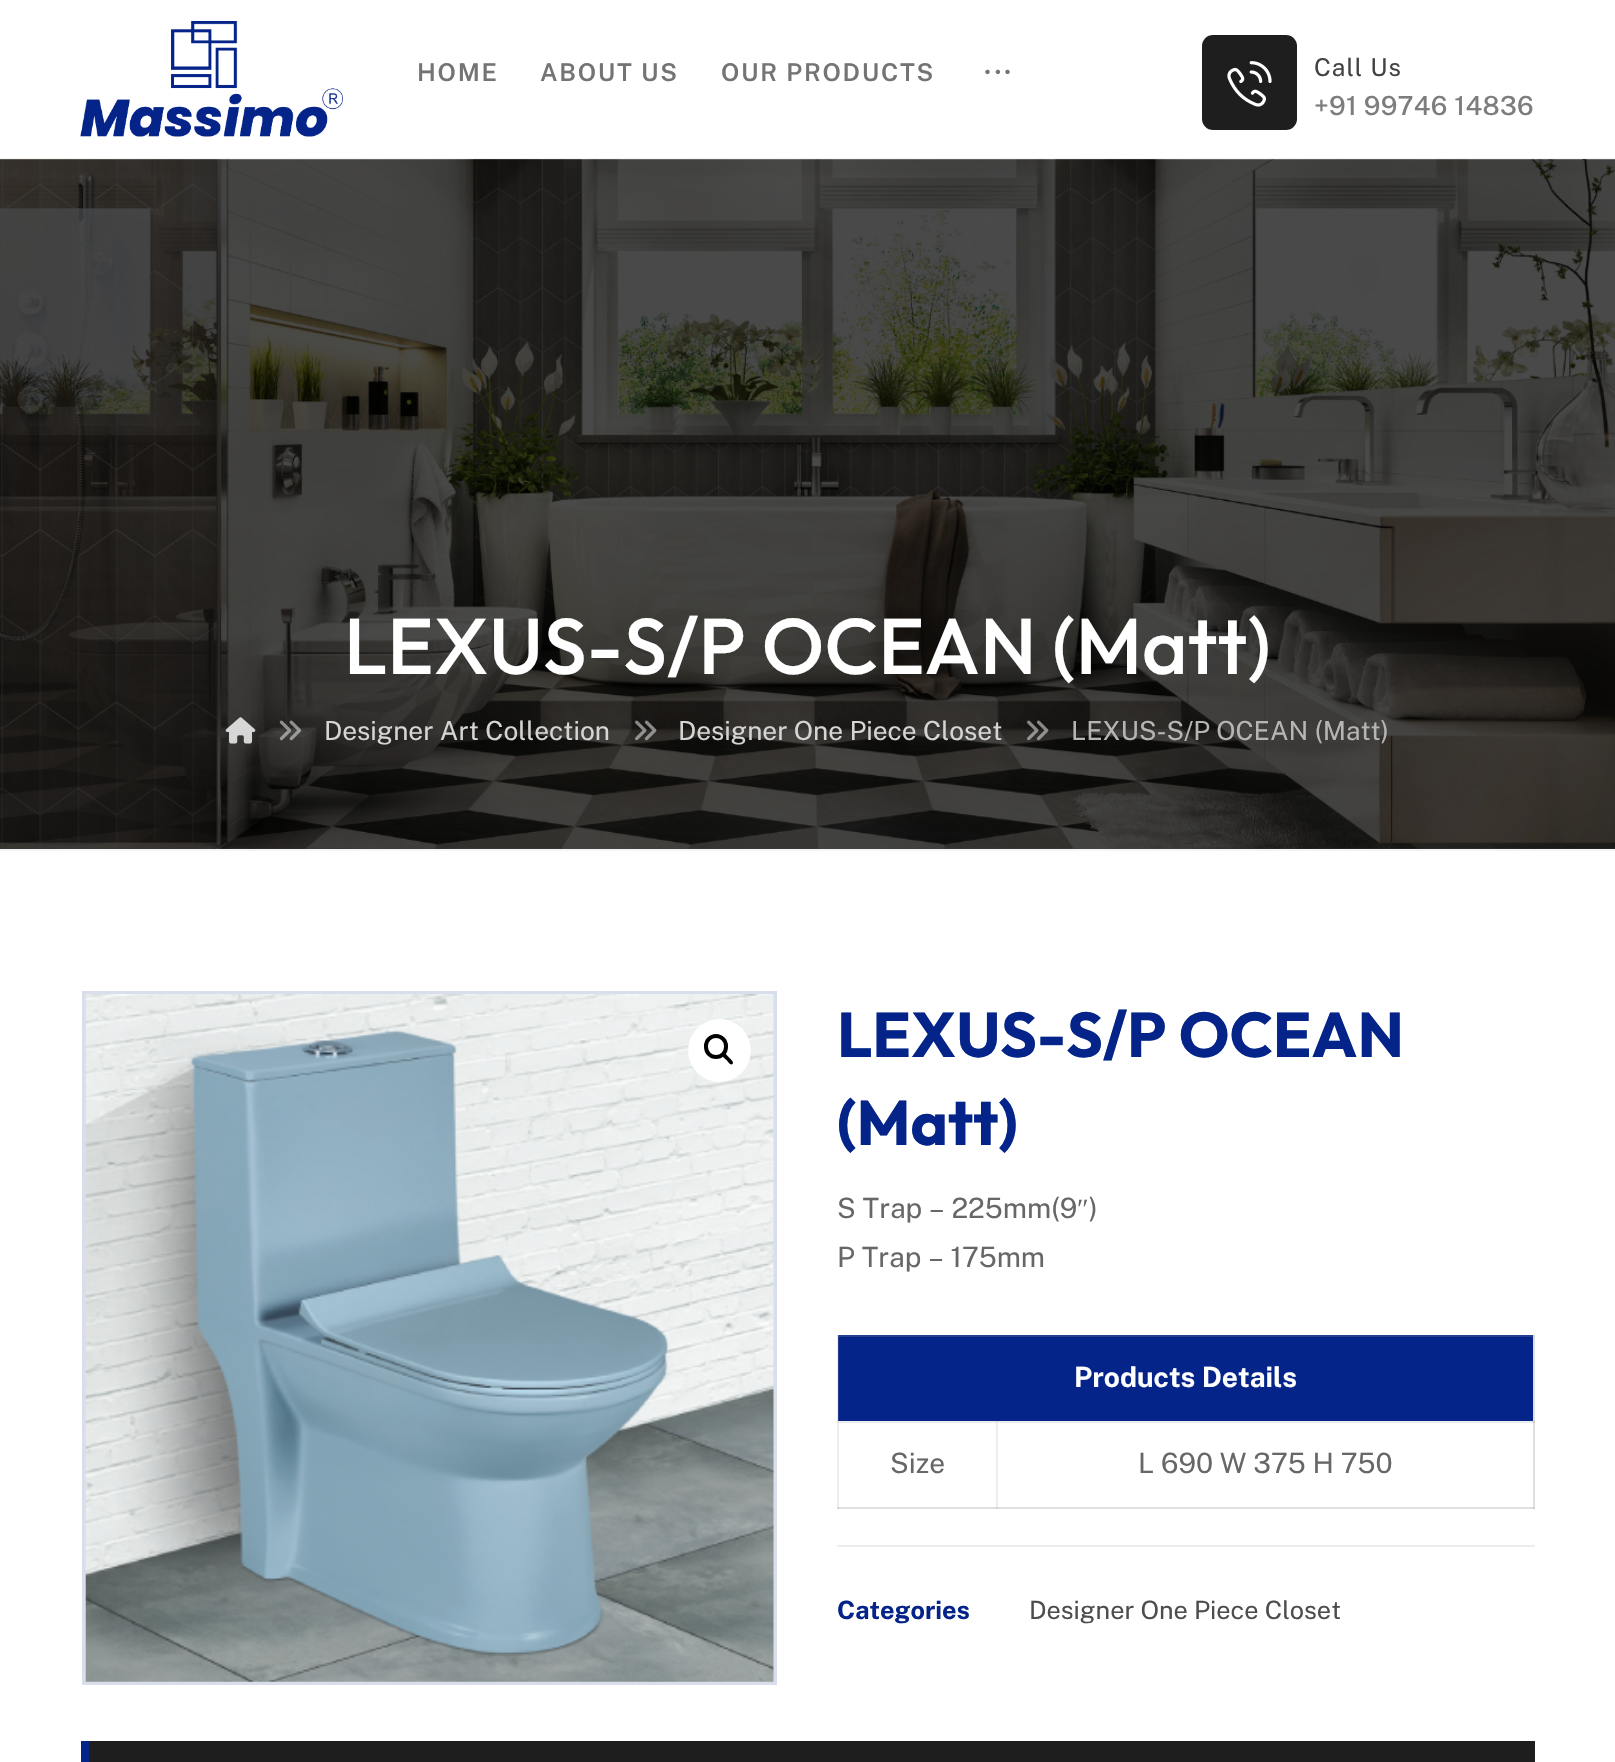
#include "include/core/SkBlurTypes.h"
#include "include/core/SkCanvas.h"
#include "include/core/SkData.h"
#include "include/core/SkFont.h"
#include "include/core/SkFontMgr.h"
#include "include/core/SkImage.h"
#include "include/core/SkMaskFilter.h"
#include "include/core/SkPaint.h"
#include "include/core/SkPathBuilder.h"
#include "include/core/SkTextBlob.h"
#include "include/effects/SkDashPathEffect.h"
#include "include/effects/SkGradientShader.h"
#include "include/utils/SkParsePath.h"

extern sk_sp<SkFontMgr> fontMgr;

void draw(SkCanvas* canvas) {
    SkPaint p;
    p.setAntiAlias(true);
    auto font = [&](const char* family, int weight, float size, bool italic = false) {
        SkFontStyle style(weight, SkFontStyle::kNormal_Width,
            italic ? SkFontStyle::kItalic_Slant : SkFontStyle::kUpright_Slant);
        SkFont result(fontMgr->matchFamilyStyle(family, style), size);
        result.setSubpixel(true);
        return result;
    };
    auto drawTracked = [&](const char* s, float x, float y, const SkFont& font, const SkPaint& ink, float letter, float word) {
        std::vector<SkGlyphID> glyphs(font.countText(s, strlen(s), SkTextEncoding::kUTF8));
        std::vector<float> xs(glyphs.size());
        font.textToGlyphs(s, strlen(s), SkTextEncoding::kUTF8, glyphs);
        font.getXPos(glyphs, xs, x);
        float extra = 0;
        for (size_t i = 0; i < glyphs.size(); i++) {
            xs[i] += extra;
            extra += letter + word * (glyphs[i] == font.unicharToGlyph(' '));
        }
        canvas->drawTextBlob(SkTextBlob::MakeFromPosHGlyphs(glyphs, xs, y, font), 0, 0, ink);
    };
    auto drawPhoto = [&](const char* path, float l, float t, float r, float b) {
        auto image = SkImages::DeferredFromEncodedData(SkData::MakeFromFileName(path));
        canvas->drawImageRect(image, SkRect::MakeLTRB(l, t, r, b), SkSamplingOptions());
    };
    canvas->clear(0xFFFFFFFF);
    {
        const struct { float l, t, r, b; SkColor color; } items[] = {
            {996, 1421, 998, 1509, 0xFFEDEDED},
            {837, 1421, 1535, 1423, 0xFFEDEDED},
            {996, 1421, 998, 1423, 0xFFDFDFDF},
            {837, 1335, 839, 1509, 0xFFEDEDED},
            {837, 1421, 839, 1423, 0xFFDFDFDF},
            {837, 1507, 1535, 1509, 0xFFDFDFDF},
            {996, 1507, 998, 1509, 0xFFD4D4D4},
            {837, 1507, 839, 1509, 0xFFD4D4D4},
            {1533, 1335, 1535, 1509, 0xFFDFDFDF},
            {1533, 1421, 1535, 1423, 0xFFCBCBCB},
            {1533, 1507, 1535, 1509, 0xFFCBCBCB},
            {837, 1335, 839, 1337, 0xFFDFDFDF},
            {1533, 1335, 1535, 1337, 0xFFD4D4D4},
        };
        for (auto [l, t, r, b, color] : items) {
            p.setColor(color);
            canvas->drawRect(SkRect::MakeLTRB(l, t, r, b), p);
        }
    }
    drawPhoto("media/4.png", 0, 159, 1615, 849);
    p.setColor(0x0A000000);
    canvas->drawRect(SkRect::MakeLTRB(0, 158, 1615, 160), p);
    drawPhoto("media/1.png", 80, 21, 343, 137);
    auto font1 = font("Public Sans", 600, 24.5f);
    p.setColor(0xFF747474);
    {
        const struct { const char* s; float x, y; } items[] = {
            {"HOME", 417, 81},
            {"ABOUT US", 540, 81},
            {"OUR PRODUCTS", 721, 81},
        };
        for (auto [s, x, y] : items) {
            drawTracked(s, x, y, font1, p, 1.75f, 0);
        }
    }
    drawPhoto("media/2.png", 985, 69, 1010, 75);
    p.setColor(0xFF1E1E1E);
    canvas->drawRoundRect(SkRect::MakeLTRB(1202, 35, 1297, 130), 11, 11, p);
    drawPhoto("media/3.png", 1227, 61, 1272, 107);
    auto font2 = font("Public Sans", 400, 24.5f);
    p.setColor(0xFF424242);
    drawTracked("Call Us", 1314, 76, font2, p, 1, 0);
    auto font3 = font("Public Sans", 500, 26.25f);
    p.setColor(0xFF7D7D7D);
    drawTracked("+91 99746 14836", 1314, 115, font3, p, 0.3f, 0);
    p.setColor(0xFFF4F4F4);
    canvas->drawRect(SkRect::MakeLTRB(0, 849, 1615, 851), p);
    auto font4 = font("Outfit", 500, 78.75f);
    p.setColor(0xFFFFFFFF);
    canvas->drawString("LEXUS-S/P OCEAN (Matt)", 344, 674, font4, p);
    drawPhoto("media/5.png", 225, 717, 256, 744);
    drawPhoto("media/6.png", 279, 720, 302, 741);
    auto font5 = font("Public Sans", 400, 26.25f);
    p.setColor(0xFFD5D5D4);
    canvas->drawString("Designer Art Collection", 324, 740, font5, p);
    drawPhoto("media/7.png", 635, 720, 657, 741);
    canvas->drawString("Designer One Piece Closet", 678, 740, font5, p);
    drawPhoto("media/8.png", 1027, 720, 1049, 741);
    p.setColor(0xFFB6B5B5);
    canvas->drawString("LEXUS-S/P OCEAN (Matt)", 1071, 740, font5, p);
    p.setStyle(SkPaint::kStroke_Style);
    p.setStrokeWidth(4);
    p.setColor(0xFFD9DEED);
    canvas->drawRect(SkRect::MakeLTRB(84, 993, 775, 1683), p);
    drawPhoto("media/9.png", 85, 994, 774, 1682);
    p.setStyle(SkPaint::kFill_Style);
    p.setColor(0xFFFFFFFF);
    canvas->drawCircle(719.5f, 1050.5f, 31.5f, p);
    p.setStyle(SkPaint::kStroke_Style);
    p.setColor(0xFF000000);
    canvas->drawRoundRect(SkRect::MakeLTRB(706, 1036, 726, 1057), 10, 10, p);
    p.setStyle(SkPaint::kFill_Style);
    canvas->drawPath(SkPathBuilder().moveTo(723, 1054).cubicTo(725, 1052, 728, 1056.5f, 729, 1057.5f).cubicTo(730, 1058.5f, 734.5f, 1062, 732.5f, 1064).cubicTo(730.5f, 1066, 727.5f, 1061, 726.5f, 1060).cubicTo(725.5f, 1059, 721, 1056, 723, 1054).close().detach(), p);
    auto font6 = font("Outfit", 700, 63);
    p.setColor(0xFF042489);
    canvas->drawString("LEXUS-S/P OCEAN", 837, 1057, font6, p);
    canvas->drawString("(Matt)", 837, 1145, font6, p);
    auto font7 = font("Public Sans", 400, 28);
    p.setColor(0xFF676767);
    canvas->drawString("S Trap – 225mm(9", 837, 1218, font7, p);
    auto font8 = font("Liberation Serif", 400, 28);
    canvas->drawString("″", 1077, 1218, font8, p);
    canvas->drawString(")", 1089, 1218, font7, p);
    canvas->drawString("P Trap – 175mm", 837, 1267, font7, p);
    {
        const struct { float l, t, r, b; SkColor color; } items[] = {
            {839, 1337, 1533, 1421, 0xFF042489},
            {838, 1335, 839, 1421, 0xFF253E8F},
            {838, 1335, 1533, 1337, 0xFF253E8F},
            {838, 1335, 839, 1337, 0xFF3F5394},
        };
        for (auto [l, t, r, b, color] : items) {
            p.setColor(color);
            canvas->drawRect(SkRect::MakeLTRB(l, t, r, b), p);
        }
    }
    auto font9 = font("Public Sans", 700, 28);
    p.setColor(0xFFFFFFFF);
    canvas->drawString("Products Details", 1074, 1387, font9, p);
    p.setColor(0xFF676767);
    canvas->drawString("Size", 890, 1473, font7, p);
    canvas->drawString("L 690 W 375 H 750", 1138, 1473, font7, p);
    p.setColor(0xFFEDEDED);
    canvas->drawRect(SkRect::MakeLTRB(837, 1545, 1535, 1547), p);
    auto font10 = font("Public Sans", 700, 25.25f);
    p.setColor(0xFF042489);
    canvas->drawString("Categories", 837, 1619, font10, p);
    auto font11 = font("Public Sans", 400, 25.25f);
    p.setColor(0xFF4D4D4D);
    canvas->drawString("Designer One Piece Closet", 1029, 1619, font11, p);
    p.setColor(0xFF1E1E1E);
    canvas->drawRect(SkRect::MakeLTRB(89, 1741, 1535, 1762), p);
    p.setColor(0xFF042489);
    canvas->drawRect(SkRect::MakeLTRB(81, 1741, 89, 1762), p);
}
